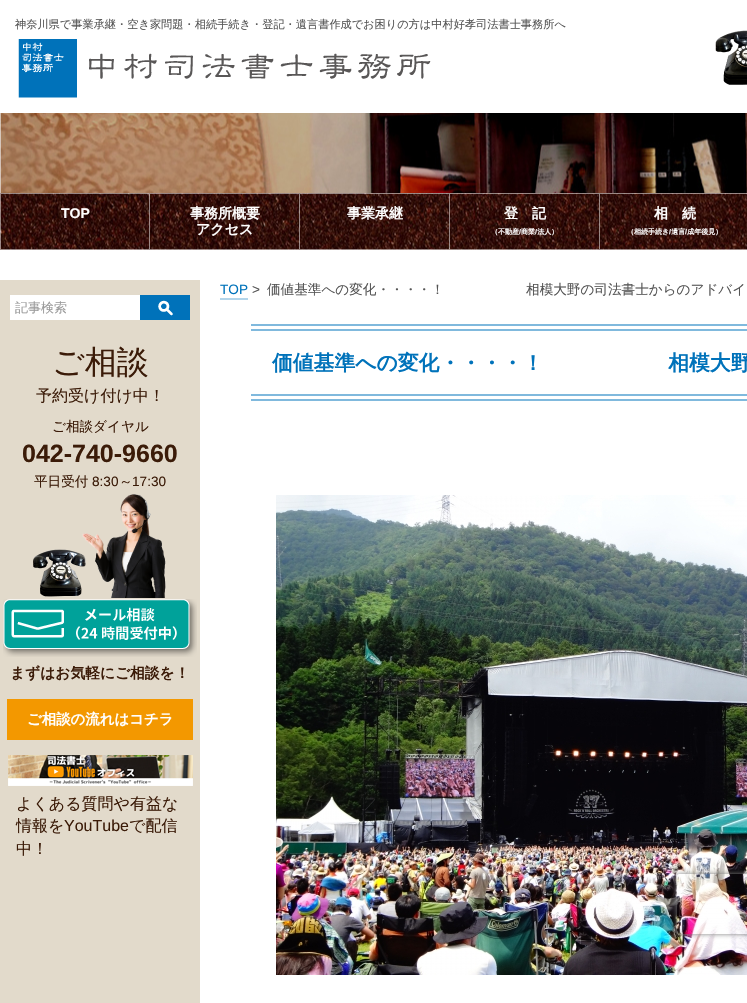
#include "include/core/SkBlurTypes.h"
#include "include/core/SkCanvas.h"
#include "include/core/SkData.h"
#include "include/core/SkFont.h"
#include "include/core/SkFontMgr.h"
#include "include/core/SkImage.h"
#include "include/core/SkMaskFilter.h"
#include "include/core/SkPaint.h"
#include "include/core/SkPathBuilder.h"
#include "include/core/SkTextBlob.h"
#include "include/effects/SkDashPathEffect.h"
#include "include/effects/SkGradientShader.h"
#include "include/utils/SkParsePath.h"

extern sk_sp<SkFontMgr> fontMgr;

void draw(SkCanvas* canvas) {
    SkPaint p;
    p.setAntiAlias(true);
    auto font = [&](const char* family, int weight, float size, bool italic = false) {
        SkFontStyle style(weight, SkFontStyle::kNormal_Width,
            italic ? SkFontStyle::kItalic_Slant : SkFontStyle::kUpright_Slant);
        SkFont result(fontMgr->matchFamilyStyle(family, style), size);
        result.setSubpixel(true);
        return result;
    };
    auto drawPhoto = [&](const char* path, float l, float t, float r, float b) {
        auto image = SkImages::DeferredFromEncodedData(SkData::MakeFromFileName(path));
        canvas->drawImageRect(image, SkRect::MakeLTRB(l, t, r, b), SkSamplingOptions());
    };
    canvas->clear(0xFFFFFFFF);
    auto font1 = font("WenQuanYi Zen Hei", 500, 11.2f);
    p.setColor(0xFF555555);
    canvas->drawString("神奈川県で事業承継・空き家問題・相続手続き・登記・遺言書作成で", 15, 28, font1, p);
    canvas->drawString("お困りの方は中村好孝司法書士事務所へ", 363, 28, font1, p);
    drawPhoto("media/1.png", 18, 39, 431, 98);
    drawPhoto("media/2.png", 715, 30, 747, 85);
    drawPhoto("media/3.png", 0, 113, 747, 193);
    drawPhoto("media/4.png", 0, 193, 747, 250);
    {
        const struct { float l, t, r, b; SkColor color; } items[] = {
            {0, 193, 747, 194, 0x80FFFFFF},
            {0, 249, 747, 250, 0x80FFFFFF},
            {149, 194, 150, 249, 0x80FFFFFF},
            {0, 194, 1, 249, 0x80FFFFFF},
        };
        for (auto [l, t, r, b, color] : items) {
            p.setColor(color);
            canvas->drawRect(SkRect::MakeLTRB(l, t, r, b), p);
        }
    }
    auto font2 = font("Liberation Sans", 700, 14);
    p.setColor(0xFFFFFFFF);
    canvas->drawString("TOP", 61, 218, font2, p);
    p.setColor(0x80FFFFFF);
    canvas->drawRect(SkRect::MakeLTRB(299, 194, 300, 249), p);
    auto font3 = font("WenQuanYi Zen Hei", 700, 14);
    p.setColor(0xFFFFFFFF);
    canvas->drawString("事務所概要", 190, 218, font3, p);
    canvas->drawString("アクセス", 196, 234, font3, p);
    p.setColor(0x80FFFFFF);
    canvas->drawRect(SkRect::MakeLTRB(449, 194, 450, 249), p);
    p.setColor(0xFFFFFFFF);
    canvas->drawString("事業承継", 347, 218, font3, p);
    p.setColor(0x80FFFFFF);
    canvas->drawRect(SkRect::MakeLTRB(599, 194, 600, 249), p);
    p.setColor(0xFFFFFFFF);
    canvas->drawString("登　記", 504, 218, font3, p);
    auto font4 = font("WenQuanYi Zen Hei", 700, 7);
    canvas->drawString("（不動産 商業 法人）", 491, 234, font4, p);
    auto font5 = font("Liberation Sans", 700, 7);
    canvas->drawString("/", 519, 234, font5, p);
    canvas->drawString("/", 535, 234, font5, p);
    canvas->drawString("相　続", 654, 218, font3, p);
    canvas->drawString("（相続手続き 遺言 成年後見）", 627, 234, font4, p);
    canvas->drawString("/", 669, 234, font5, p);
    canvas->drawString("/", 685, 234, font5, p);
    p.setColor(0xFFE2DACB);
    canvas->drawRect(SkRect::MakeLTRB(0, 280, 200, 1003), p);
    p.setColor(0xFFFFFFFF);
    canvas->drawRect(SkRect::MakeLTRB(10, 295, 140, 320), p);
    auto font6 = font("WenQuanYi Zen Hei", 500, 13);
    p.setColor(0xFF999999);
    canvas->drawString("記事検索", 15, 312, font6, p);
    p.setColor(0xFF0072BA);
    canvas->drawRect(SkRect::MakeLTRB(140, 295, 190, 320), p);
    drawPhoto("media/5.png", 158, 300, 173, 316);
    auto font7 = font("WenQuanYi Zen Hei", 500, 32);
    p.setColor(0xFF3B1B08);
    canvas->drawString("ご相談", 52, 373, font7, p);
    auto font8 = font("WenQuanYi Zen Hei", 500, 16);
    canvas->drawString("予約受け付け中！", 36, 401, font8, p);
    drawPhoto("media/6.png", 33, 494, 166, 598);
    auto font9 = font("WenQuanYi Zen Hei", 500, 13.6f);
    canvas->drawString("ご相談ダイヤル", 52, 431, font9, p);
    auto font10 = font("Liberation Sans", 700, 25);
    canvas->drawString("042-740-9660", 22, 462, font10, p);
    canvas->drawString("平日受付", 34, 486, font9, p);
    auto font11 = font("Liberation Sans", 400, 13.6f);
    canvas->drawString("8:30", 92, 486, font11, p);
    canvas->drawString("～", 119, 486, font9, p);
    canvas->drawString("17:30", 132, 486, font11, p);
    drawPhoto("media/7.png", 3, 599, 197, 657);
    auto font12 = font("WenQuanYi Zen Hei", 700, 14.75f);
    canvas->drawString("まずはお気軽にご相談を！", 10, 678, font12, p);
    p.setColor(0xFFF39800);
    canvas->drawRect(SkRect::MakeLTRB(7, 699, 193, 740), p);
    auto font13 = font("WenQuanYi Zen Hei", 700, 14.4f);
    p.setColor(0xFFFFFFFF);
    canvas->drawString("ご相談の流れはコチラ", 27, 724, font13, p);
    drawPhoto("media/8.png", 8, 755, 193, 786);
    p.setColor(0xFF3B1B08);
    canvas->drawString("よくある質問や有益な", 16, 809, font8, p);
    canvas->drawString("情報を", 16, 831, font8, p);
    auto font14 = font("Liberation Sans", 400, 16);
    canvas->drawString("YouTube", 64, 831, font14, p);
    canvas->drawString("で配信", 129, 831, font8, p);
    canvas->drawString("中！", 16, 854, font8, p);
    p.setColor(0xFF0072BA);
    canvas->drawString("TOP", 220, 294, font11, p);
    p.setColor(0xFFB3D5EA);
    canvas->drawRect(SkRect::MakeLTRB(220, 298, 248, 300), p);
    p.setColor(0xFF555555);
    canvas->drawString(">", 252, 294, font11, p);
    canvas->drawString("価値基準への変化・・・・！　　　　　　相模大野の司法書士からのアドバイ", 267, 294, font9, p);
    {
        const struct { float l, t, r, b; SkColor color; } items[] = {
            {251, 324, 747, 326, 0xFF80B9DD},
            {251, 329, 747, 331, 0xFF80B9DD},
            {251, 394, 747, 396, 0xFF80B9DD},
            {251, 399, 747, 401, 0xFF80B9DD},
        };
        for (auto [l, t, r, b, color] : items) {
            p.setColor(color);
            canvas->drawRect(SkRect::MakeLTRB(l, t, r, b), p);
        }
    }
    auto font15 = font("WenQuanYi Zen Hei", 700, 20.8f);
    p.setColor(0xFF0072BA);
    canvas->drawString("価値基準への変化・・・・！　　　　　　相模大野", 272, 370, font15, p);
    drawPhoto("media/9.png", 276, 495, 747, 975);
    canvas->save();
    canvas->clipPath(SkPathBuilder(SkPathFillType::kEvenOdd).moveTo(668, 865).lineTo(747, 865).lineTo(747, 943).lineTo(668, 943).close().moveTo(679, 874).lineTo(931, 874).cubicTo(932, 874, 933, 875, 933, 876).lineTo(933, 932).cubicTo(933, 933, 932, 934, 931, 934).lineTo(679, 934).cubicTo(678, 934, 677, 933, 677, 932).lineTo(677, 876).cubicTo(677, 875, 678, 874, 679, 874).close().detach(), true);
    p.setColor(0xFF808080);
    p.setMaskFilter(SkMaskFilter::MakeBlur(kNormal_SkBlurStyle, 2.5f));
    canvas->drawRoundRect(SkRect::MakeLTRB(677, 874, 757, 934), 2, 2, p);
    p.setMaskFilter(nullptr);
    canvas->restore();
}
